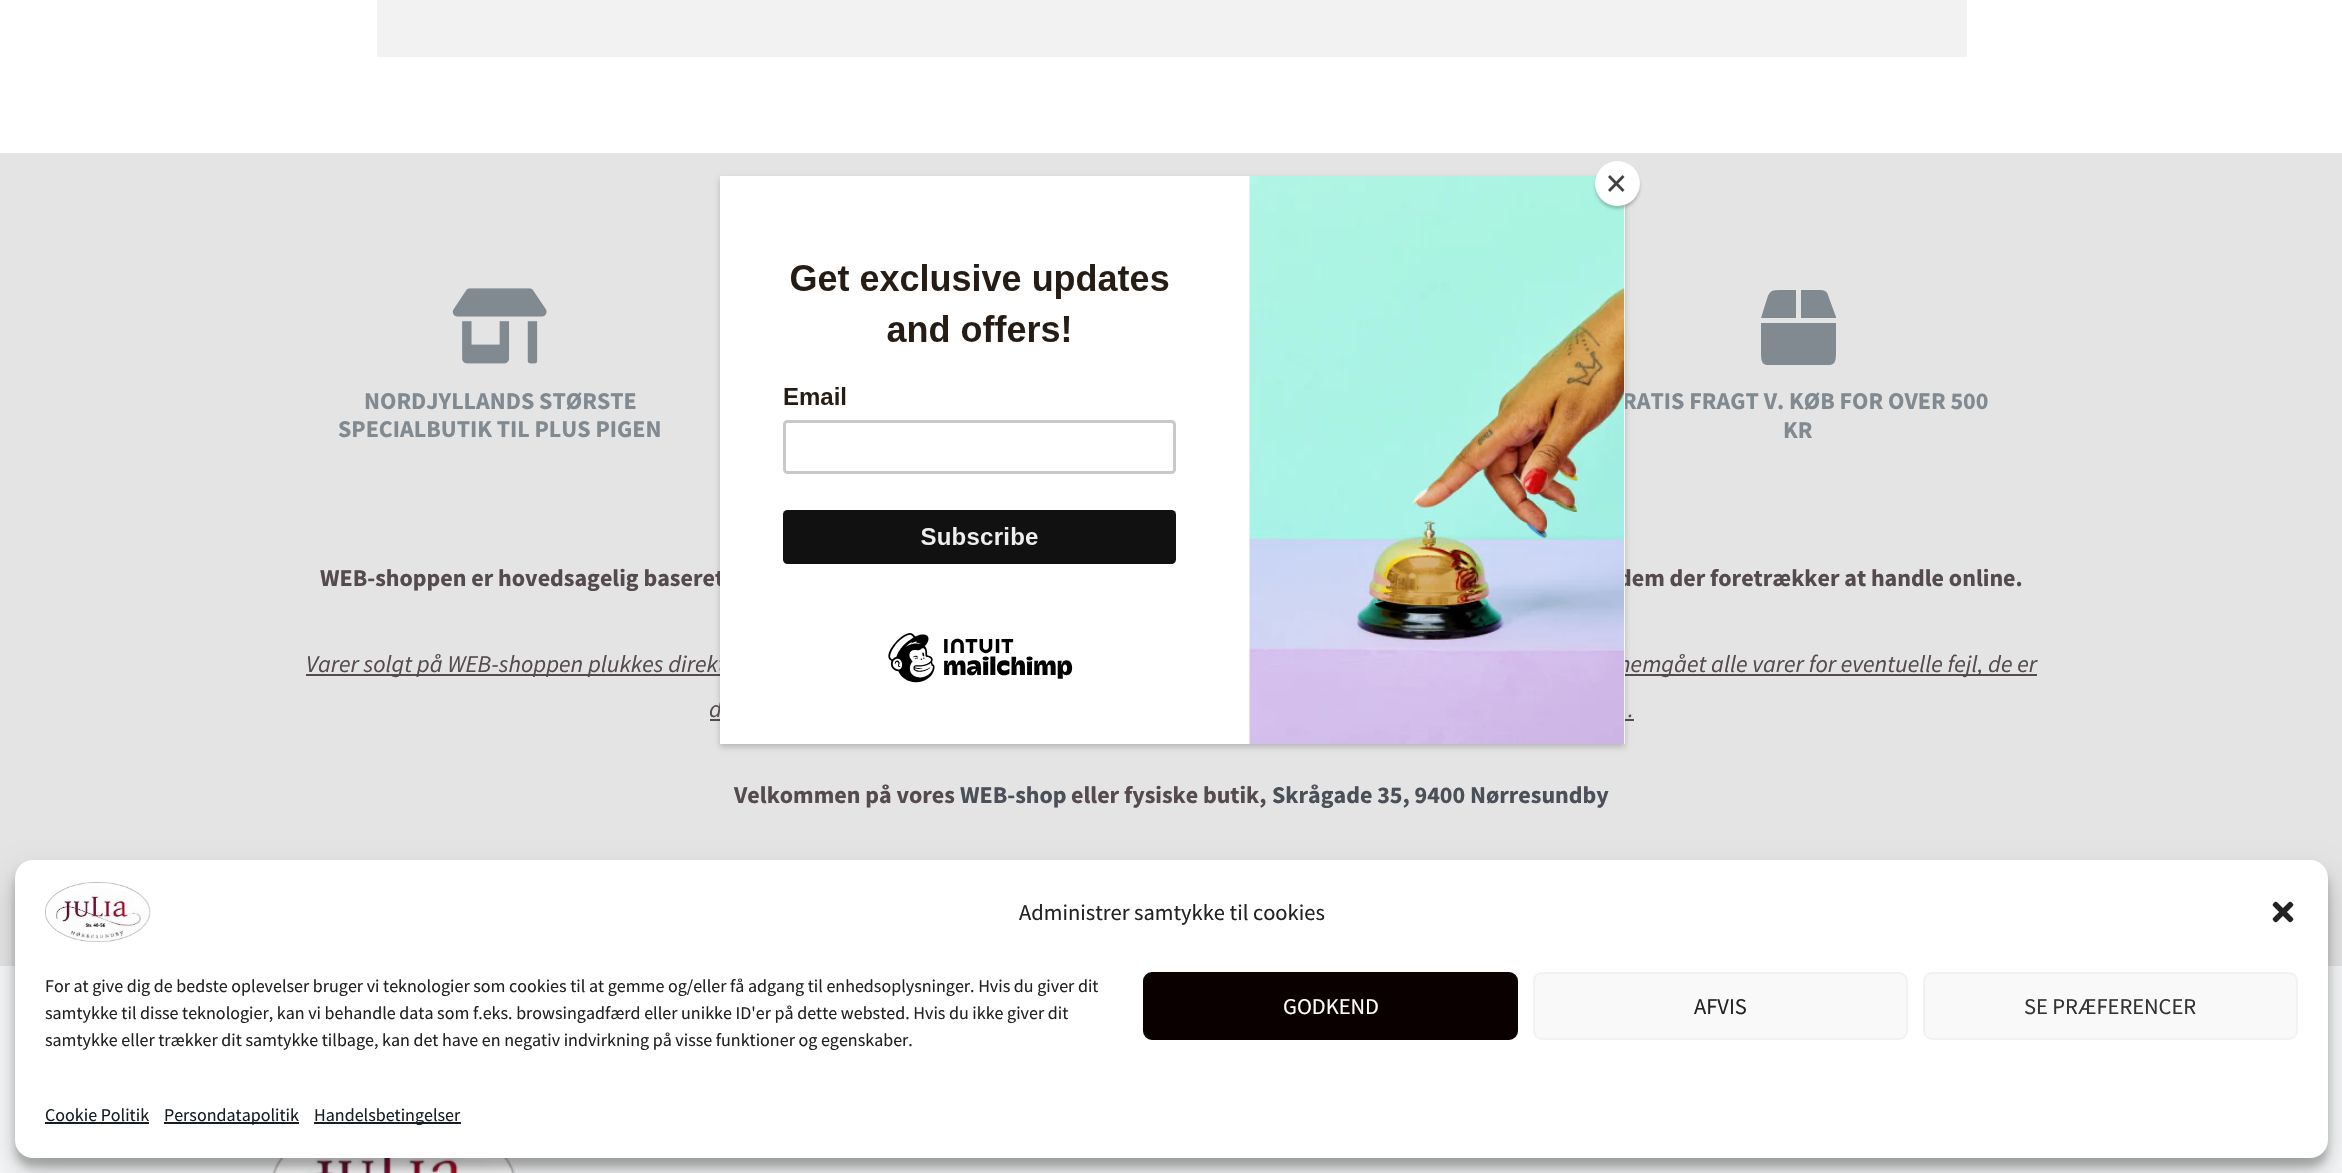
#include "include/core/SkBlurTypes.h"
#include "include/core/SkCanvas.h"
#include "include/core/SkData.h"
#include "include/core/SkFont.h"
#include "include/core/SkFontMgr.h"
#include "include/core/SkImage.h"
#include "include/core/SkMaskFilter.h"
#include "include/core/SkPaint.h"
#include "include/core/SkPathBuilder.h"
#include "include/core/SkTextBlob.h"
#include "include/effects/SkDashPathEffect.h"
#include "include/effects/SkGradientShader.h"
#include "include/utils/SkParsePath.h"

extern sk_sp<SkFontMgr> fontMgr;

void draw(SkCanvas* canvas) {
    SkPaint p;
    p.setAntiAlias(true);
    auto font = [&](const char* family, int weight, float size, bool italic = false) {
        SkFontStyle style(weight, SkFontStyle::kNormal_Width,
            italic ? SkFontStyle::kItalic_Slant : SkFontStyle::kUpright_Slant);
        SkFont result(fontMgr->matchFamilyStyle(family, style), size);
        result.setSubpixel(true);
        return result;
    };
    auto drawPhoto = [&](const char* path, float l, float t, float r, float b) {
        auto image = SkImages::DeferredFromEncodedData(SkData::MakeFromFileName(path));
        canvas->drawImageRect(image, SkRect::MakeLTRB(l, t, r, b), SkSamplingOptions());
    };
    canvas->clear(0xFFFFFFFF);
    {
        const struct { float l, t, r, b; SkColor color; } items[] = {
            {0, 153, 2342, 966, 0xFFE4E4E4},
            {306, 674, 2037, 676, 0xFF554B4E},
            {710, 719, 1634, 721, 0xFF554B4E},
        };
        for (auto [l, t, r, b, color] : items) {
            p.setColor(color);
            canvas->drawRect(SkRect::MakeLTRB(l, t, r, b), p);
        }
    }
    p.setColor(0x33000000);
    p.setMaskFilter(SkMaskFilter::MakeBlur(kNormal_SkBlurStyle, 3));
    canvas->drawRect(SkRect::MakeLTRB(720, 179, 1625, 747), p);
    p.setMaskFilter(nullptr);
    auto font1 = font("Source Sans Pro", 700, 24);
    p.setColor(0xFF818A91);
    canvas->drawString("RATIS FRAGT V. KØB FOR OVER 500", 1622, 409, font1, p);
    p.setColor(0xFF554B4E);
    canvas->drawString("WEB-shoppen er hovedsagelig baseret", 320, 586, font1, p);
    canvas->drawString("dem der foretrækker at handle online.", 1618, 586, font1, p);
    auto font2 = font("Source Sans Pro", 400, 24, true);
    {
        const struct { const char* s; float x, y; } items[] = {
            {"Varer solgt på WEB-shoppen plukkes direkt", 306, 672},
            {"nemgået alle varer for eventuelle fejl, de er", 1618, 672},
            {"d", 709, 717},
        };
        for (auto [s, x, y] : items) {
            canvas->drawString(s, x, y, font2, p);
        }
    }
    drawPhoto("media/1.png", 720, 176, 1625, 744);
    p.setColor(0x33000000);
    p.setMaskFilter(SkMaskFilter::MakeBlur(kNormal_SkBlurStyle, 1.5f));
    canvas->drawRoundRect(SkRect::MakeLTRB(1595, 164, 1640, 209), 22.5f, 22.5f, p);
    p.setMaskFilter(nullptr);
    p.setColor(0xFFFFFFFF);
    canvas->drawCircle(1617.5f, 183.5f, 22.5f, p);
    p.setColor(0xFF414141);
    canvas->drawPath(SkPathBuilder().moveTo(1622.5f, 175).lineTo(1624.5f, 177).lineTo(1610, 192).lineTo(1608, 190).close().detach(), p);
    canvas->drawPath(SkPathBuilder().moveTo(1608, 177).lineTo(1610, 175).lineTo(1624.5f, 190).lineTo(1622.5f, 192).close().detach(), p);
    p.setColor(0xFFF2F2F2);
    canvas->drawRect(SkRect::MakeLTRB(377, 0, 1967, 57), p);
    drawPhoto("media/2.png", 452, 288, 547, 364);
    p.setColor(0xFF818A91);
    canvas->drawString("NORDJYLLANDS STØRSTE", 364, 409, font1, p);
    canvas->drawString("SPECIALBUTIK TIL PLUS PIGEN", 338, 437, font1, p);
    canvas->drawPath(SkPathBuilder().moveTo(1836, 317).lineTo(1836, 318).lineTo(1801, 318).lineTo(1801, 290).lineTo(1818, 290).cubicTo(1826, 290, 1827, 291, 1829, 298).close().moveTo(1796, 290).lineTo(1796, 318).lineTo(1761, 318).lineTo(1766, 302).cubicTo(1769, 293, 1769, 290, 1779, 290).close().moveTo(1761, 323).lineTo(1836, 323).lineTo(1836, 352).cubicTo(1836, 367, 1833, 365, 1819, 365).lineTo(1778, 365).cubicTo(1764, 365, 1761, 367, 1761, 352).close().detach(), p);
    canvas->drawString("KR", 1783, 438, font1, p);
    p.setColor(0xFF554B4E);
    canvas->drawString(".", 1628, 717, font2, p);
    canvas->drawString("Velkommen på vores", 734, 803, font1, p);
    p.setColor(0xFF4B4F58);
    canvas->drawString("WEB-shop", 960, 803, font1, p);
    p.setColor(0xFF554B4E);
    canvas->drawString("eller fysiske butik,", 1071, 803, font1, p);
    p.setColor(0xFF4B4F58);
    canvas->drawString("Skrågade 35, 9400 Nørresundby", 1272, 803, font1, p);
    p.setColor(0xFFF6F7F8);
    canvas->drawRect(SkRect::MakeLTRB(0, 966, 2342, 1173), p);
    drawPhoto("media/3.png", 272, 1158, 515, 1173);
    p.setColor(0x3B000000);
    p.setMaskFilter(SkMaskFilter::MakeBlur(kNormal_SkBlurStyle, 4.5f));
    canvas->drawRoundRect(SkRect::MakeLTRB(15, 869, 2328, 1167), 18, 18, p);
    p.setMaskFilter(nullptr);
    p.setColor(0x30000000);
    p.setMaskFilter(SkMaskFilter::MakeBlur(kNormal_SkBlurStyle, 15));
    canvas->drawRoundRect(SkRect::MakeLTRB(15, 875, 2328, 1173), 18, 18, p);
    p.setMaskFilter(nullptr);
    p.setColor(0xFFFFFFFF);
    canvas->drawRoundRect(SkRect::MakeLTRB(15, 860, 2328, 1158), 18, 18, p);
    drawPhoto("media/4.png", 45, 882, 151, 942);
    auto font3 = font("Source Sans Pro", 400, 22.5f);
    p.setColor(0xFF222222);
    canvas->drawString("Administrer samtykke til cookies", 1019, 920, font3, p);
    drawPhoto("media/5.png", 2272, 901, 2294, 923);
    auto font4 = font("Source Sans Pro", 400, 18);
    {
        const struct { const char* s; float x, y; } items[] = {
            {"For at give dig de bedste oplevelser bruger vi teknologier som cookies til at gemme og/eller få adgang til enhedsoplysninger. Hvis du giver dit", 45, 992},
            {"samtykke til disse teknologier, kan vi behandle data som f.eks. browsingadfærd eller unikke ID'er på dette websted. Hvis du ikke giver dit", 45, 1019},
            {"samtykke eller trækker dit samtykke tilbage, kan det have en negativ indvirkning på visse funktioner og egenskaber.", 45, 1046},
        };
        for (auto [s, x, y] : items) {
            canvas->drawString(s, x, y, font4, p);
        }
    }
    p.setColor(0xFF0A0000);
    canvas->drawRoundRect(SkRect::MakeLTRB(1144, 973, 1517, 1039), 8, 8, p);
    p.setStyle(SkPaint::kStroke_Style);
    p.setStrokeWidth(2);
    canvas->drawRoundRect(SkRect::MakeLTRB(1144, 973, 1517, 1039), 8, 8, p);
    p.setStyle(SkPaint::kFill_Style);
    p.setColor(0xFFFFFFFF);
    canvas->drawString("GODKEND", 1283, 1014, font3, p);
    p.setColor(0xFFF9F9F9);
    canvas->drawRoundRect(SkRect::MakeLTRB(1534, 973, 1907, 1039), 8, 8, p);
    p.setStyle(SkPaint::kStroke_Style);
    p.setColor(0xFFF2F2F2);
    canvas->drawRoundRect(SkRect::MakeLTRB(1534, 973, 1907, 1039), 8, 8, p);
    p.setStyle(SkPaint::kFill_Style);
    p.setColor(0xFF222222);
    canvas->drawString("AFVIS", 1694, 1014, font3, p);
    p.setColor(0xFFF9F9F9);
    canvas->drawRoundRect(SkRect::MakeLTRB(1924, 973, 2297, 1039), 8, 8, p);
    p.setStyle(SkPaint::kStroke_Style);
    p.setColor(0xFFF2F2F2);
    canvas->drawRoundRect(SkRect::MakeLTRB(1924, 973, 2297, 1039), 8, 8, p);
    p.setStyle(SkPaint::kFill_Style);
    p.setColor(0xFF333333);
    canvas->drawString("SE PRÆFERENCER", 2024, 1014, font3, p);
    p.setColor(0xFF191E23);
    canvas->drawString("Cookie Politik", 45, 1121, font4, p);
    canvas->drawRect(SkRect::MakeLTRB(45, 1122, 149, 1124), p);
    canvas->drawRect(SkRect::MakeLTRB(164, 1122, 299, 1124), p);
    canvas->drawString("Persondatapolitik", 164, 1121, font4, p);
    canvas->drawRect(SkRect::MakeLTRB(314, 1122, 461, 1124), p);
    canvas->drawString("Handelsbetingelser", 314, 1121, font4, p);
}
